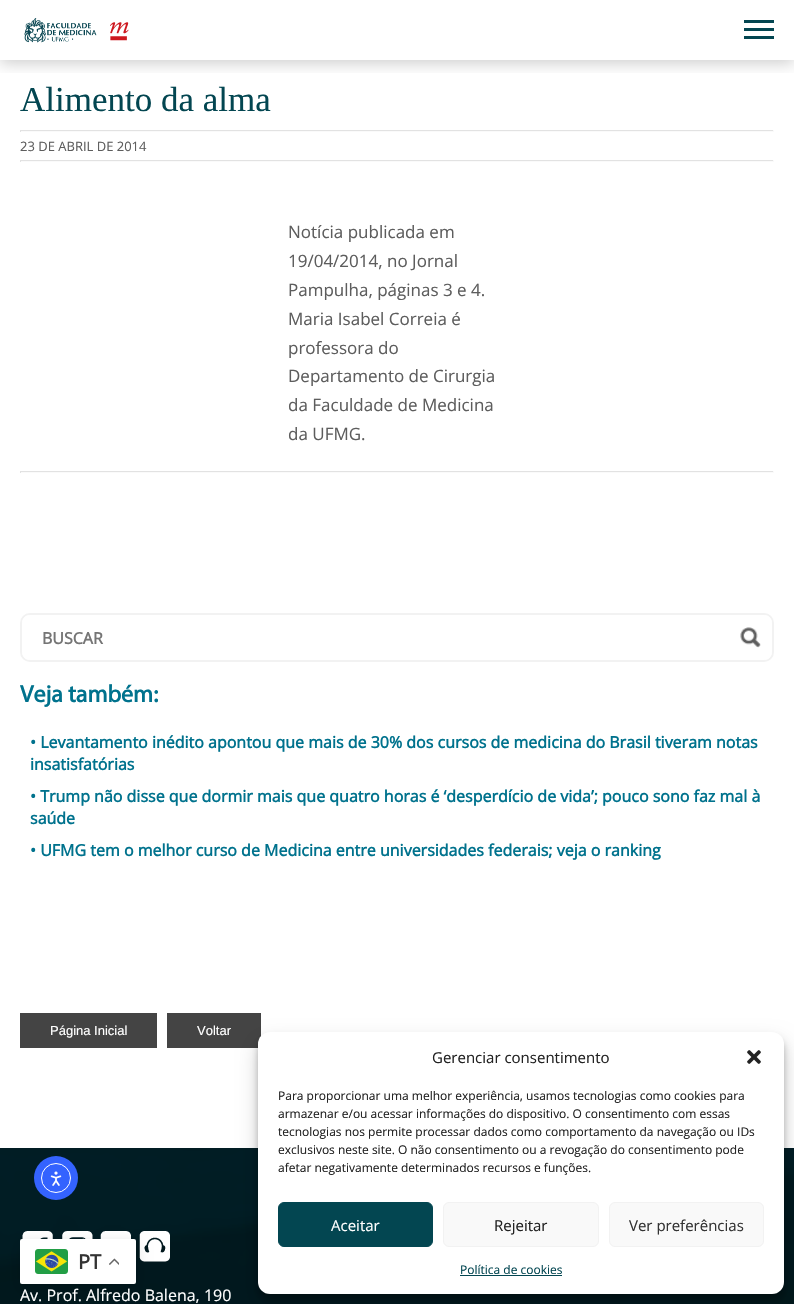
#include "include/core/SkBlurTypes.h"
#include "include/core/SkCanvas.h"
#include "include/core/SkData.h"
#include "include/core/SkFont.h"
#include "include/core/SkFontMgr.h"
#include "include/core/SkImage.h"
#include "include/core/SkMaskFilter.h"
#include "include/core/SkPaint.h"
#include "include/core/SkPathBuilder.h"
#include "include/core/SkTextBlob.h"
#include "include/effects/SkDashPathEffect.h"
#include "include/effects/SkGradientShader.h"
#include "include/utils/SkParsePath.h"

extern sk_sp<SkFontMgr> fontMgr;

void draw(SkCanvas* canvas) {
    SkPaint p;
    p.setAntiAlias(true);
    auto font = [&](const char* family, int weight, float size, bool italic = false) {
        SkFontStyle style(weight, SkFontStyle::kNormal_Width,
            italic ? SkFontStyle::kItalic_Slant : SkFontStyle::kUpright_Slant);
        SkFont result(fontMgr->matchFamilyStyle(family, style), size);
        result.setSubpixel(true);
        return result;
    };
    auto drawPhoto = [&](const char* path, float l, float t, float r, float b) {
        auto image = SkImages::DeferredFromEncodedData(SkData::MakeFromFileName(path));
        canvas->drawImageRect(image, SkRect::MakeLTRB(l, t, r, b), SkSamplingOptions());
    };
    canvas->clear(0xFFFFFFFF);
    canvas->save();
    canvas->clipRect(SkRect::MakeLTRB(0, 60, 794, 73));
    p.setColor(0x33000000);
    p.setMaskFilter(SkMaskFilter::MakeBlur(kNormal_SkBlurStyle, 7.5f));
    canvas->drawRect(SkRect::MakeLTRB(0, 3, 794, 63), p);
    p.setMaskFilter(nullptr);
    canvas->restore();
    drawPhoto("media/1.png", 24, 18, 97, 43);
    drawPhoto("media/2.png", 110, 22, 129, 41);
    {
        const struct { float l, t, r, b; SkColor color; } items[] = {
            {744, 20, 774, 23, 0xFF034651},
            {744, 36, 774, 39, 0xFF034651},
            {744, 28, 774, 31, 0xFF034651},
        };
        for (auto [l, t, r, b, color] : items) {
            p.setColor(color);
            canvas->drawRect(SkRect::MakeLTRB(l, t, r, b), p);
        }
    }
    auto font1 = font("Liberation Serif", 400, 35);
    canvas->drawString("Alimento da alma", 20, 111, font1, p);
    {
        const struct { float l, t, r, b; SkColor color; } items[] = {
            {20, 130, 774, 131, 0xFFE2E2E2},
            {773, 130, 774, 132, 0xFFFAFAFA},
            {20, 131, 774, 132, 0xFFFAFAFA},
            {20, 130, 21, 132, 0xFFE2E2E2},
        };
        for (auto [l, t, r, b, color] : items) {
            p.setColor(color);
            canvas->drawRect(SkRect::MakeLTRB(l, t, r, b), p);
        }
    }
    auto font2 = font("Open Sans", 400, 13);
    p.setColor(0xFF5D5D5D);
    canvas->drawString("23 DE ABRIL DE 2014", 20, 151, font2, p);
    {
        const struct { float l, t, r, b; SkColor color; } items[] = {
            {20, 160, 774, 161, 0xFFE2E2E2},
            {773, 160, 774, 162, 0xFFFAFAFA},
            {20, 161, 774, 162, 0xFFFAFAFA},
            {20, 160, 21, 162, 0xFFE2E2E2},
        };
        for (auto [l, t, r, b, color] : items) {
            p.setColor(color);
            canvas->drawRect(SkRect::MakeLTRB(l, t, r, b), p);
        }
    }
    auto font3 = font("Open Sans", 400, 17);
    p.setColor(0xFF5D5D5D);
    {
        const struct { const char* s; float x, y; } items[] = {
            {"Notícia publicada em", 288, 238},
            {"19/04/2014, no Jornal", 288, 267},
            {"Pampulha, páginas 3 e 4.", 288, 296},
            {"Maria Isabel Correia é", 288, 325},
            {"professora do", 288, 354},
            {"Departamento de Cirurgia", 288, 382},
            {"da Faculdade de Medicina", 288, 411},
            {"da UFMG.", 288, 440},
        };
        for (auto [s, x, y] : items) {
            canvas->drawString(s, x, y, font3, p);
        }
    }
    {
        const struct { float l, t, r, b; SkColor color; } items[] = {
            {20, 471, 774, 472, 0xFFE2E2E2},
            {773, 471, 774, 473, 0xFFFAFAFA},
            {20, 472, 774, 473, 0xFFFAFAFA},
            {20, 471, 21, 473, 0xFFE2E2E2},
        };
        for (auto [l, t, r, b, color] : items) {
            p.setColor(color);
            canvas->drawRect(SkRect::MakeLTRB(l, t, r, b), p);
        }
    }
    p.setStyle(SkPaint::kStroke_Style);
    p.setStrokeWidth(2);
    p.setColor(0xFFF2F2F2);
    canvas->drawRoundRect(SkRect::MakeLTRB(21, 614, 773, 661), 9, 9, p);
    p.setStyle(SkPaint::kFill_Style);
    p.setColor(0xFFFFFFFF);
    canvas->drawPath(SkPathBuilder().moveTo(30, 615).lineTo(727, 615).lineTo(727, 660).lineTo(30, 660).cubicTo(25.5f, 660, 22, 656.5f, 22, 652).lineTo(22, 623).cubicTo(22, 618.5f, 25.5f, 615, 30, 615).close().detach(), p);
    auto font4 = font("Open Sans", 700, 16);
    p.setColor(0xFF757575);
    canvas->drawString("BUSCAR", 42, 644, font4, p);
    p.setColor(0xFFFFFFFF);
    canvas->drawPath(SkPathBuilder().moveTo(727, 615).lineTo(764, 615).cubicTo(768.5f, 615, 772, 618.5f, 772, 623).lineTo(772, 652).cubicTo(772, 656.5f, 768.5f, 660, 764, 660).lineTo(727, 660).close().detach(), p);
    drawPhoto("media/3.png", 740, 627, 761, 648);
    auto font5 = font("Myriad", 700, 24);
    p.setColor(0xFF00728D);
    canvas->drawString("Veja também:", 20, 702, font5, p);
    {
        const struct { const char* s; float x, y; } items[] = {
            {"• Levantamento inédito apontou que mais de 30% dos cursos de medicina do Brasil tiveram notas", 30, 748},
            {"insatisfatórias", 30, 770},
            {"• Trump não disse que dormir mais que quatro horas é ‘desperdício de vida’; pouco sono faz mal à", 30, 802},
            {"saúde", 30, 824},
            {"• UFMG tem o melhor curso de Medicina entre universidades federais; veja o ranking", 30, 856},
        };
        for (auto [s, x, y] : items) {
            canvas->drawString(s, x, y, font4, p);
        }
    }
    p.setColor(0xFF444444);
    canvas->drawRect(SkRect::MakeLTRB(20, 1013, 157, 1048), p);
    auto font6 = font("Liberation Sans", 400, 13);
    p.setColor(0xFFFFFFFF);
    canvas->drawString("Página Inicial", 50, 1035, font6, p);
    p.setColor(0xFF444444);
    canvas->drawRect(SkRect::MakeLTRB(167, 1013, 261, 1048), p);
    p.setColor(0xFFFFFFFF);
    canvas->drawString("Voltar", 197, 1035, font6, p);
    drawPhoto("media/6.png", 0, 1148, 794, 1304);
    drawPhoto("media/7.png", 22, 1231, 53, 1239);
    drawPhoto("media/8.png", 62, 1231, 93, 1239);
    drawPhoto("media/9.png", 100, 1231, 131, 1239);
    drawPhoto("media/10.png", 139, 1231, 170, 1262);
    p.setColor(0x26000000);
    p.setMaskFilter(SkMaskFilter::MakeBlur(kNormal_SkBlurStyle, 7.5f));
    canvas->drawRoundRect(SkRect::MakeLTRB(20, 1244, 136, 1289), 2, 2, p);
    p.setMaskFilter(nullptr);
    p.setColor(0xFFFFFFFF);
    canvas->drawRoundRect(SkRect::MakeLTRB(20, 1239, 136, 1284), 2, 2, p);
    drawPhoto("media/4.png", 35, 1249, 68, 1274);
    auto font7 = font("Open Sans", 700, 20);
    p.setColor(0xFF333333);
    canvas->drawString("PT", 78, 1269, font7, p);
    drawPhoto("media/5.png", 109, 1258, 119, 1265);
    auto font8 = font("Open Sans", 400, 16);
    p.setColor(0xFFFFFFFF);
    canvas->drawString("Av. Prof. Alfredo Balena, 190", 20, 1301, font8, p);
    p.setColor(0xFF3463FF);
    canvas->drawCircle(56, 1178, 22, p);
    p.setStyle(SkPaint::kStroke_Style);
    p.setStrokeWidth(1);
    p.setColor(0xFFFFFFFF);
    canvas->drawCircle(56, 1178, 14.5f, p);
    drawPhoto("media/11.png", 50, 1171, 62, 1186);
    p.setStyle(SkPaint::kFill_Style);
    p.setColor(0x3B000000);
    p.setMaskFilter(SkMaskFilter::MakeBlur(kNormal_SkBlurStyle, 3));
    canvas->drawRoundRect(SkRect::MakeLTRB(258, 1038, 784, 1300), 12, 12, p);
    p.setMaskFilter(nullptr);
    p.setColor(0x30000000);
    p.setMaskFilter(SkMaskFilter::MakeBlur(kNormal_SkBlurStyle, 10));
    canvas->drawRoundRect(SkRect::MakeLTRB(258, 1042, 784, 1304), 12, 12, p);
    p.setMaskFilter(nullptr);
    p.setColor(0xFFFFFFFF);
    canvas->drawRoundRect(SkRect::MakeLTRB(258, 1032, 784, 1294), 12, 12, p);
    auto font9 = font("Open Sans", 400, 15);
    p.setColor(0xFF222222);
    canvas->drawString("Gerenciar consentimento", 432, 1063, font9, p);
    drawPhoto("media/12.png", 747, 1050, 761, 1064);
    auto font10 = font("Open Sans", 400, 12);
    {
        const struct { const char* s; float x, y; } items[] = {
            {"Para proporcionar uma melhor experiência, usamos tecnologias como cookies para", 278, 1100},
            {"armazenar e/ou acessar informações do dispositivo. O consentimento com essas", 278, 1118},
            {"tecnologias nos permite processar dados como comportamento da navegação ou IDs", 278, 1136},
            {"exclusivos neste site. O não consentimento ou a revogação do consentimento pode", 278, 1154},
            {"afetar negativamente determinados recursos e funções.", 278, 1172},
        };
        for (auto [s, x, y] : items) {
            canvas->drawString(s, x, y, font10, p);
        }
    }
    p.setColor(0xFF034651);
    canvas->drawRoundRect(SkRect::MakeLTRB(278.5f, 1202.5f, 432.5f, 1246.5f), 5.5f, 5.5f, p);
    p.setStyle(SkPaint::kStroke_Style);
    canvas->drawRoundRect(SkRect::MakeLTRB(278.5f, 1202.5f, 432.5f, 1246.5f), 5.5f, 5.5f, p);
    p.setStyle(SkPaint::kFill_Style);
    p.setColor(0xFFFFFFFF);
    canvas->drawString("Aceitar", 331, 1231, font9, p);
    p.setColor(0xFFF9F9F9);
    canvas->drawRoundRect(SkRect::MakeLTRB(443.5f, 1202.5f, 598.5f, 1246.5f), 5.5f, 5.5f, p);
    p.setStyle(SkPaint::kStroke_Style);
    p.setColor(0xFFF2F2F2);
    canvas->drawRoundRect(SkRect::MakeLTRB(443.5f, 1202.5f, 598.5f, 1246.5f), 5.5f, 5.5f, p);
    p.setStyle(SkPaint::kFill_Style);
    p.setColor(0xFF222222);
    canvas->drawString("Rejeitar", 494, 1231, font9, p);
    p.setColor(0xFFF9F9F9);
    canvas->drawRoundRect(SkRect::MakeLTRB(609.5f, 1202.5f, 763.5f, 1246.5f), 5.5f, 5.5f, p);
    p.setStyle(SkPaint::kStroke_Style);
    p.setColor(0xFFF2F2F2);
    canvas->drawRoundRect(SkRect::MakeLTRB(609.5f, 1202.5f, 763.5f, 1246.5f), 5.5f, 5.5f, p);
    p.setStyle(SkPaint::kFill_Style);
    p.setColor(0xFF333333);
    canvas->drawString("Ver preferências", 629, 1231, font9, p);
    p.setColor(0xFF034651);
    canvas->drawString("Política de cookies", 460, 1274, font10, p);
    canvas->drawRect(SkRect::MakeLTRB(460, 1275, 562, 1276), p);
}
